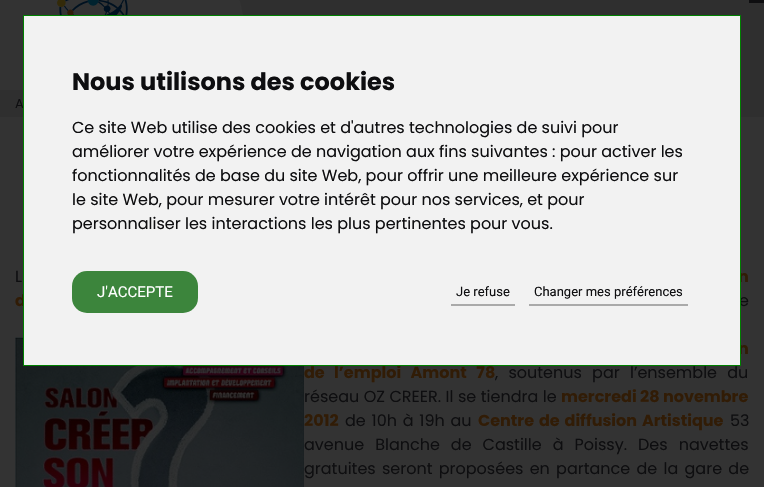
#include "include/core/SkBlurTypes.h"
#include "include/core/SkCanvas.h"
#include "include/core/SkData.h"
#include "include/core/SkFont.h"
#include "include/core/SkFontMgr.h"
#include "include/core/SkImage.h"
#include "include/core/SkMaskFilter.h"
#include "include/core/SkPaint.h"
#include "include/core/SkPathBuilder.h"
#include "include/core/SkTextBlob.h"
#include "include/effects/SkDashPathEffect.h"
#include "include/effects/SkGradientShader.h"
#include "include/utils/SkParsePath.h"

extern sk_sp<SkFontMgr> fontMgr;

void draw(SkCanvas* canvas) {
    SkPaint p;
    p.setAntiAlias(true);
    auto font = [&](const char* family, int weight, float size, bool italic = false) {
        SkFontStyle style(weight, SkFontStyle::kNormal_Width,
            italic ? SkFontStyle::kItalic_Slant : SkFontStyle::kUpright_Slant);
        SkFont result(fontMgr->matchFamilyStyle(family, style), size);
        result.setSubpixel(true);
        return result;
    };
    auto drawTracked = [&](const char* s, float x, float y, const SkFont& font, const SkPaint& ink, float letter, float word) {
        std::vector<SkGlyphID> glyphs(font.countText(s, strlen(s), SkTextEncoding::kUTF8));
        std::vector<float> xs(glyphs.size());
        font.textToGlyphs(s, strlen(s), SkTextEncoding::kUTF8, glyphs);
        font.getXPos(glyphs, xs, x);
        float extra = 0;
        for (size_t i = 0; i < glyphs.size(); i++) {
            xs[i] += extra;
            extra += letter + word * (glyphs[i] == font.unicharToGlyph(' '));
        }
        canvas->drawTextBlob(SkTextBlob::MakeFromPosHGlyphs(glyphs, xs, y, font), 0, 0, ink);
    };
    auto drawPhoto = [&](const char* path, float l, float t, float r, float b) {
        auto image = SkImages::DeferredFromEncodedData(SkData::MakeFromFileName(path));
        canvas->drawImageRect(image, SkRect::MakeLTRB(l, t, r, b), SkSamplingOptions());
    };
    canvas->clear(0xFF2F2F2F);
    p.setColor(0xFF333333);
    canvas->drawRect(SkRect::MakeLTRB(0, 0, 35, 90), p);
    canvas->drawRect(SkRect::MakeLTRB(0, 117, 764, 487), p);
    auto font1 = font("Poppins", 400, 13);
    p.setColor(0xFF0E0E10);
    canvas->drawString("A", 15, 108, font1, p);
    auto font2 = font("Poppins", 700, 16);
    p.setColor(0xFF311C06);
    drawTracked("n", 738, 282, font2, p, 0, 4);
    drawTracked("d", 15, 306, font2, p, 0, 6.75f);
    auto font3 = font("Poppins", 400, 16);
    p.setColor(0xFF0E0E10);
    drawTracked("e", 739, 306, font3, p, 0, 6.75f);
    drawPhoto("media/2.png", 15, 337, 304, 487);
    p.setColor(0xFF311C06);
    canvas->drawString("n", 738, 354, font2, p);
    drawTracked("de l’emploi Amont 7", 304, 378, font2, p, 0, 6);
    p.setColor(0xFFF2F2F2);
    canvas->drawRect(SkRect::MakeLTRB(23.5f, 15.5f, 740.5f, 365.5f), p);
    p.setStyle(SkPaint::kStroke_Style);
    p.setStrokeWidth(1);
    p.setColor(0xFF008000);
    canvas->drawRect(SkRect::MakeLTRB(23.5f, 15.5f, 740.5f, 365.5f), p);
    auto font4 = font("Poppins", 700, 24);
    p.setStyle(SkPaint::kFill_Style);
    p.setColor(0xFF0E0E10);
    canvas->drawString("Nous utilisons des cookies", 72, 90, font4, p);
    {
        const struct { const char* s; float x, y; } items[] = {
            {"Ce site Web utilise des cookies et d'autres technologies de suivi pour", 72, 133},
            {"améliorer votre expérience de navigation aux fins suivantes : pour activer les", 72, 157},
            {"fonctionnalités de base du site Web, pour offrir une meilleure expérience sur", 72, 181},
            {"le site Web, pour mesurer votre intérêt pour nos services, et pour", 72, 205},
            {"personnaliser les interactions les plus pertinentes pour vous.", 72, 229},
        };
        for (auto [s, x, y] : items) {
            canvas->drawString(s, x, y, font3, p);
        }
    }
    p.setColor(0xFF3C853C);
    canvas->drawRoundRect(SkRect::MakeLTRB(72, 271, 198, 313), 15, 15, p);
    auto font5 = font("Roboto", 400, 15);
    p.setColor(0xFFFFFFFF);
    canvas->drawString("J'ACCEPTE", 97, 297, font5, p);
    auto font6 = font("Roboto", 400, 13);
    p.setColor(0xFF0E0E10);
    canvas->drawString("Je refuse", 456, 296, font6, p);
    p.setColor(0xFFAAAAAA);
    canvas->drawRect(SkRect::MakeLTRB(451, 304, 515, 306), p);
    p.setColor(0xFF0E0E10);
    canvas->drawString("Changer mes préférences", 534, 296, font6, p);
    p.setColor(0xFFAAAAAA);
    canvas->drawRect(SkRect::MakeLTRB(529, 304, 688, 306), p);
    drawPhoto("media/1.png", 35, 0, 243, 15);
    p.setColor(0xFF0E0E10);
    canvas->drawRect(SkRect::MakeLTRB(749, 0, 764, 3), p);
    canvas->drawString("L", 15, 282, font3, p);
    p.setColor(0xFF311C06);
    canvas->drawString("8", 485, 378, font2, p);
    p.setColor(0xFF0E0E10);
    drawTracked(", soutenus par l’ensemble du", 495, 378, font3, p, 0, 6);
    drawTracked("réseau OZ CREER. Il se tiendra le", 304, 402, font3, p, 0, 0.25f);
    p.setColor(0xFF311C06);
    canvas->drawString("mercredi 28 novembre", 561, 402, font2, p);
    canvas->drawString("2012", 304, 426, font2, p);
    p.setColor(0xFF0E0E10);
    drawTracked("de 10h à 19h au", 345, 426, font3, p, 0, 1.5f);
    p.setColor(0xFF311C06);
    drawTracked("Centre de diffusion Artistique", 478, 426, font2, p, 0, 1.5f);
    p.setColor(0xFF0E0E10);
    canvas->drawString("53", 730, 426, font3, p);
    drawTracked("avenue Blanche de Castille à Poissy. Des navettes", 304, 450, font3, p, 0, 6.75f);
    drawTracked("gratuites seront proposées en partance de la gare de", 304, 474, font3, p, 0, 2);
}
